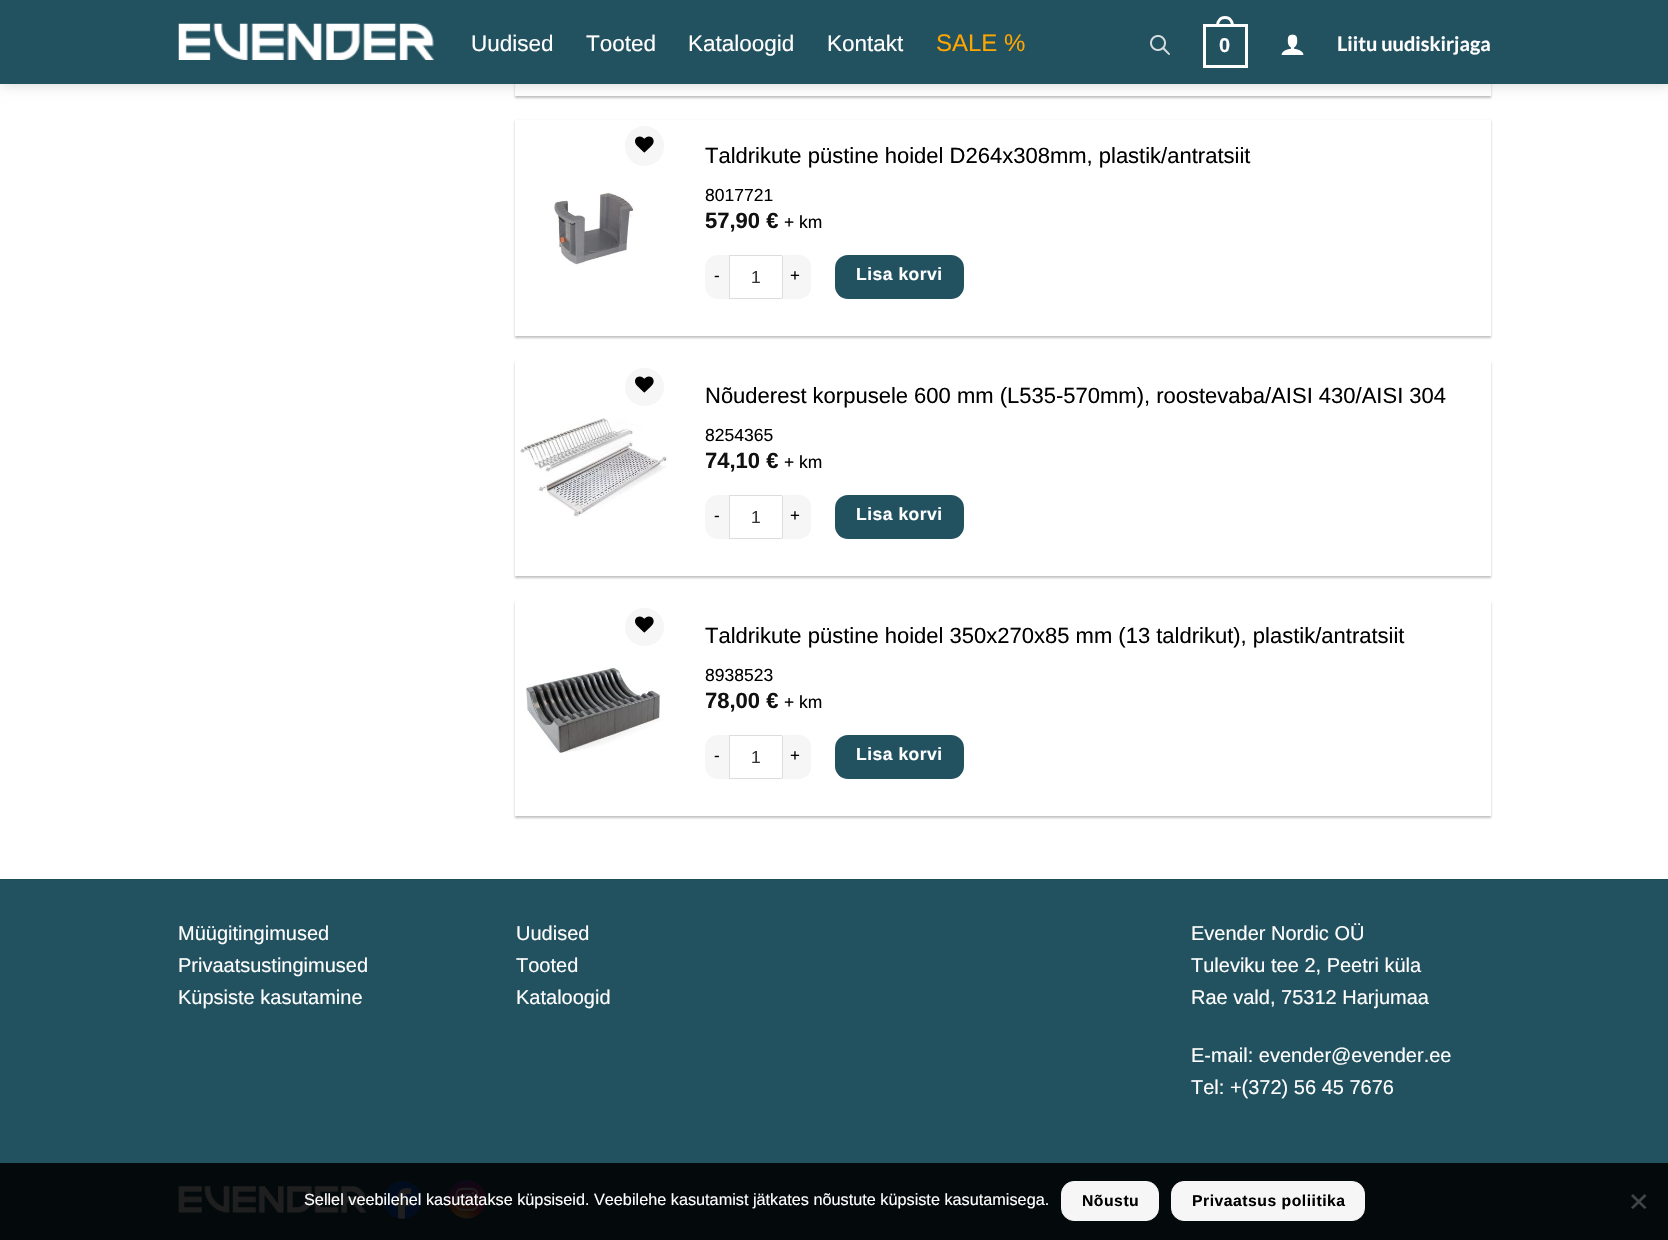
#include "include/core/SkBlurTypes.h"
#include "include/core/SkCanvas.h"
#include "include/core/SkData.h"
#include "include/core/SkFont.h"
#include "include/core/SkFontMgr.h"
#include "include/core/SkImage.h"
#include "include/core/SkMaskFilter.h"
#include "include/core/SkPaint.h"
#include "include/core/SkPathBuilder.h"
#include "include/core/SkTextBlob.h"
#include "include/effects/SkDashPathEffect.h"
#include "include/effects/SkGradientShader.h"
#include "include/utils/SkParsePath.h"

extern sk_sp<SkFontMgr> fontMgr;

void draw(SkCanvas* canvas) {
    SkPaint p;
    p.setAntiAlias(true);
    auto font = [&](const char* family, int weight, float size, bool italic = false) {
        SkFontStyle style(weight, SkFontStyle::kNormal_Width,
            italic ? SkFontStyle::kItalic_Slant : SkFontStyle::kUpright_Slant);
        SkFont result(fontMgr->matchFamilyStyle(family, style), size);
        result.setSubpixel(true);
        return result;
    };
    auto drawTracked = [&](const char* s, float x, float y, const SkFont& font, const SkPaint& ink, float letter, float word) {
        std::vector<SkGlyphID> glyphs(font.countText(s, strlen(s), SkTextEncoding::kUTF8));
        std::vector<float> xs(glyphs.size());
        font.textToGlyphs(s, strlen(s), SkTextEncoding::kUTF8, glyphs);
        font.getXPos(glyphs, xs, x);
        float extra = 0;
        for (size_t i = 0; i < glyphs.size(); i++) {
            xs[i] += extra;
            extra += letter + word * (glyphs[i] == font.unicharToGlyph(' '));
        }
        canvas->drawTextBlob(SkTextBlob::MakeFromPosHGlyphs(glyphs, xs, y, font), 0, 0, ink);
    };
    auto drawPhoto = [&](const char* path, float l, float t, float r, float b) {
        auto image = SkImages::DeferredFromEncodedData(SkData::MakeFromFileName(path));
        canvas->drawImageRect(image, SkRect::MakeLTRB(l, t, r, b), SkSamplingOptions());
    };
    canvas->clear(0xFFFFFFFF);
    p.setColor(0x26000000);
    p.setMaskFilter(SkMaskFilter::MakeBlur(kNormal_SkBlurStyle, 6));
    canvas->drawRect(SkRect::MakeLTRB(1, 1, 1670, 85), p);
    p.setMaskFilter(nullptr);
    canvas->save();
    canvas->clipPath(SkPathBuilder(SkPathFillType::kEvenOdd).moveTo(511, 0).lineTo(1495, 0).lineTo(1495, 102).lineTo(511, 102).close().moveTo(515, -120).lineTo(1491, -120).lineTo(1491, 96).lineTo(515, 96).close().detach(), true);
    p.setColor(0x3D000000);
    p.setMaskFilter(SkMaskFilter::MakeBlur(kNormal_SkBlurStyle, 1));
    canvas->drawRect(SkRect::MakeLTRB(515, -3, 1491, 98), p);
    p.setMaskFilter(nullptr);
    canvas->restore();
    p.setColor(0xFF225160);
    canvas->drawRect(SkRect::MakeLTRB(0, 0, 1668, 84), p);
    drawPhoto("media/1.png", 178, 23, 434, 60);
    auto font1 = font("Liberation Sans", 400, 22.5f);
    p.setColor(0xFFFFFFFF);
    {
        const struct { const char* s; float x, y; } items[] = {
            {"Uudised", 471, 51},
            {"Tooted", 586, 51},
            {"Kataloogid", 688, 51},
            {"Kontakt", 827, 51},
        };
        for (auto [s, x, y] : items) {
            canvas->drawString(s, x, y, font1, p);
        }
    }
    auto font2 = font("Liberation Sans", 400, 24);
    p.setColor(0xFFFFA500);
    canvas->drawString("SALE %", 936, 51, font2, p);
    drawPhoto("media/2.png", 1150, 35, 1170, 55);
    p.setStyle(SkPaint::kStroke_Style);
    p.setStrokeWidth(3);
    p.setColor(0xFFFFFFFF);
    canvas->drawRect(SkRect::MakeLTRB(1204.5f, 25.5f, 1246.5f, 66.5f), p);
    p.setStyle(SkPaint::kFill_Style);
    canvas->drawPath(SkPathBuilder(SkPathFillType::kEvenOdd).moveTo(1225, 16).cubicTo(1231, 16, 1234, 21, 1234, 26).lineTo(1216, 26).cubicTo(1216, 21, 1219, 16, 1225, 16).close().moveTo(1225, 19).cubicTo(1229.5f, 19, 1231, 22.5f, 1231, 26).lineTo(1219, 26).cubicTo(1219, 22.5f, 1220.5f, 19, 1225, 19).close().detach(), p);
    auto font3 = font("Liberation Sans", 700, 20);
    canvas->drawString("0", 1219, 52, font3, p);
    drawPhoto("media/3.png", 1281, 34, 1304, 55);
    auto font4 = font("Lato", 700, 20);
    canvas->drawString("Liitu uudiskirjaga", 1337, 51, font4, p);
    canvas->save();
    canvas->clipPath(SkPathBuilder(SkPathFillType::kEvenOdd).moveTo(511, 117).lineTo(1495, 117).lineTo(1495, 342).lineTo(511, 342).close().moveTo(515, 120).lineTo(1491, 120).lineTo(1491, 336).lineTo(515, 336).close().detach(), true);
    p.setColor(0x3D000000);
    p.setMaskFilter(SkMaskFilter::MakeBlur(kNormal_SkBlurStyle, 1));
    canvas->drawRect(SkRect::MakeLTRB(515, 121, 1491, 338), p);
    p.setMaskFilter(nullptr);
    canvas->restore();
    p.setColor(0xFFF6F6F6);
    canvas->drawRoundRect(SkRect::MakeLTRB(625, 126, 664, 166), 19.5f, 19.5f, p);
    drawPhoto("media/4.png", 635, 136, 654, 153);
    drawPhoto("media/5.png", 553, 192, 634, 266);
    auto font5 = font("Liberation Sans", 400, 22);
    p.setColor(0xFF000000);
    canvas->drawString("Taldrikute püstine hoidel D264x308mm, plastik/antratsiit", 705, 163, font5, p);
    auto font6 = font("Liberation Sans", 400, 17.5f);
    canvas->drawString("8017721", 705, 201, font6, p);
    auto font7 = font("Liberation Sans", 700, 22);
    p.setColor(0xFF111111);
    canvas->drawString("57,90 €", 705, 228, font7, p);
    p.setColor(0xFF000000);
    canvas->drawString("+ km", 784, 228, font6, p);
    p.setColor(0xFFF6F6F6);
    canvas->drawPath(SkPathBuilder().moveTo(718, 255).lineTo(729, 255).lineTo(729, 299).lineTo(718, 299).cubicTo(711, 299, 705, 293, 705, 286).lineTo(705, 268).cubicTo(705, 261, 711, 255, 718, 255).close().detach(), p);
    auto font8 = font("Liberation Sans", 400, 17);
    p.setColor(0xFF000000);
    drawTracked("-", 714, 281, font8, p, 1, 0);
    p.setStyle(SkPaint::kStroke_Style);
    p.setStrokeWidth(1);
    p.setColor(0xFFDDDDDD);
    canvas->drawRect(SkRect::MakeLTRB(729.5f, 255.5f, 782.5f, 298.5f), p);
    p.setStyle(SkPaint::kFill_Style);
    p.setColor(0xFF333333);
    canvas->drawString("1", 751, 283, font6, p);
    p.setColor(0xFFF6F6F6);
    canvas->drawPath(SkPathBuilder().moveTo(783, 255).lineTo(798, 255).cubicTo(805, 255, 811, 261, 811, 268).lineTo(811, 286).cubicTo(811, 293, 805, 299, 798, 299).lineTo(783, 299).close().detach(), p);
    canvas->drawPath(SkPathBuilder(SkPathFillType::kEvenOdd).moveTo(782, 255).cubicTo(792, 255, 808, 252, 811, 265).lineTo(811, 289).cubicTo(808, 302, 792, 299, 782, 299).close().moveTo(782, 256).cubicTo(791, 256, 807, 253, 810, 265).lineTo(810, 289).cubicTo(807, 301, 791, 298, 782, 298).close().detach(), p);
    p.setColor(0xFF000000);
    drawTracked("+", 790, 281, font8, p, 1, 0);
    p.setColor(0xFF225160);
    canvas->drawRoundRect(SkRect::MakeLTRB(835, 255, 964, 299), 13, 13, p);
    auto font9 = font("Liberation Sans", 700, 17.5f);
    p.setColor(0xFFFFFFFF);
    drawTracked("Lisa korvi", 856, 280, font9, p, 0.5f, 0);
    canvas->save();
    canvas->clipPath(SkPathBuilder(SkPathFillType::kEvenOdd).moveTo(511, 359).lineTo(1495, 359).lineTo(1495, 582).lineTo(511, 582).close().moveTo(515, 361).lineTo(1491, 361).lineTo(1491, 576).lineTo(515, 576).close().detach(), true);
    p.setColor(0x3D000000);
    p.setMaskFilter(SkMaskFilter::MakeBlur(kNormal_SkBlurStyle, 1));
    canvas->drawRect(SkRect::MakeLTRB(515, 363, 1491, 578), p);
    p.setMaskFilter(nullptr);
    canvas->restore();
    p.setColor(0xFFF6F6F6);
    canvas->drawRoundRect(SkRect::MakeLTRB(625, 368, 664, 406), 19, 19, p);
    drawPhoto("media/4.png", 635, 376, 654, 393);
    drawPhoto("media/6.png", 520, 418, 668, 517);
    p.setColor(0xFF000000);
    canvas->drawString("Nõuderest korpusele 600 mm (L535-570mm), roostevaba/AISI 430/AISI 304", 705, 403, font5, p);
    canvas->drawString("8254365", 705, 441, font6, p);
    p.setColor(0xFF111111);
    canvas->drawString("74,10 €", 705, 468, font7, p);
    p.setColor(0xFF000000);
    canvas->drawString("+ km", 784, 468, font6, p);
    p.setColor(0xFFF6F6F6);
    canvas->drawPath(SkPathBuilder().moveTo(718, 495).lineTo(729, 495).lineTo(729, 539).lineTo(718, 539).cubicTo(711, 539, 705, 533, 705, 526).lineTo(705, 508).cubicTo(705, 501, 711, 495, 718, 495).close().detach(), p);
    p.setColor(0xFF000000);
    drawTracked("-", 714, 521, font8, p, 1, 0);
    p.setStyle(SkPaint::kStroke_Style);
    p.setColor(0xFFDDDDDD);
    canvas->drawRect(SkRect::MakeLTRB(729.5f, 495.5f, 782.5f, 538.5f), p);
    p.setStyle(SkPaint::kFill_Style);
    p.setColor(0xFF333333);
    canvas->drawString("1", 751, 523, font6, p);
    p.setColor(0xFFF6F6F6);
    canvas->drawPath(SkPathBuilder().moveTo(783, 495).lineTo(798, 495).cubicTo(805, 495, 811, 501, 811, 508).lineTo(811, 526).cubicTo(811, 533, 805, 539, 798, 539).lineTo(783, 539).close().detach(), p);
    canvas->drawPath(SkPathBuilder(SkPathFillType::kEvenOdd).moveTo(782, 495).cubicTo(792, 495, 808, 492, 811, 505).lineTo(811, 529).cubicTo(808, 542, 792, 539, 782, 539).close().moveTo(782, 496).cubicTo(791, 496, 807, 493, 810, 505).lineTo(810, 529).cubicTo(807, 541, 791, 538, 782, 538).close().detach(), p);
    p.setColor(0xFF000000);
    drawTracked("+", 790, 521, font8, p, 1, 0);
    p.setColor(0xFF225160);
    canvas->drawRoundRect(SkRect::MakeLTRB(835, 495, 964, 539), 13, 13, p);
    p.setColor(0xFFFFFFFF);
    drawTracked("Lisa korvi", 856, 520, font9, p, 0.5f, 0);
    canvas->save();
    canvas->clipPath(SkPathBuilder(SkPathFillType::kEvenOdd).moveTo(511, 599).lineTo(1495, 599).lineTo(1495, 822).lineTo(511, 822).close().moveTo(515, 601).lineTo(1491, 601).lineTo(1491, 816).lineTo(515, 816).close().detach(), true);
    p.setColor(0x3D000000);
    p.setMaskFilter(SkMaskFilter::MakeBlur(kNormal_SkBlurStyle, 1));
    canvas->drawRect(SkRect::MakeLTRB(515, 603, 1491, 818), p);
    p.setMaskFilter(nullptr);
    canvas->restore();
    p.setColor(0xFFF6F6F6);
    canvas->drawRoundRect(SkRect::MakeLTRB(625, 608, 664, 646), 19, 19, p);
    drawPhoto("media/4.png", 635, 616, 654, 633);
    drawPhoto("media/7.png", 526, 667, 661, 753);
    p.setColor(0xFF000000);
    canvas->drawString("Taldrikute püstine hoidel 350x270x85 mm (13 taldrikut), plastik/antratsiit", 705, 643, font5, p);
    canvas->drawString("8938523", 705, 681, font6, p);
    p.setColor(0xFF111111);
    canvas->drawString("78,00 €", 705, 708, font7, p);
    p.setColor(0xFF000000);
    canvas->drawString("+ km", 784, 708, font6, p);
    p.setColor(0xFFF6F6F6);
    canvas->drawPath(SkPathBuilder().moveTo(718, 735).lineTo(729, 735).lineTo(729, 779).lineTo(718, 779).cubicTo(711, 779, 705, 773, 705, 766).lineTo(705, 748).cubicTo(705, 741, 711, 735, 718, 735).close().detach(), p);
    p.setColor(0xFF000000);
    drawTracked("-", 714, 761, font8, p, 1, 0);
    p.setStyle(SkPaint::kStroke_Style);
    p.setColor(0xFFDDDDDD);
    canvas->drawRect(SkRect::MakeLTRB(729.5f, 735.5f, 782.5f, 778.5f), p);
    p.setStyle(SkPaint::kFill_Style);
    p.setColor(0xFF333333);
    canvas->drawString("1", 751, 763, font6, p);
    p.setColor(0xFFF6F6F6);
    canvas->drawPath(SkPathBuilder().moveTo(783, 735).lineTo(798, 735).cubicTo(805, 735, 811, 741, 811, 748).lineTo(811, 766).cubicTo(811, 773, 805, 779, 798, 779).lineTo(783, 779).close().detach(), p);
    canvas->drawPath(SkPathBuilder(SkPathFillType::kEvenOdd).moveTo(782, 735).cubicTo(792, 735, 808, 732, 811, 745).lineTo(811, 769).cubicTo(808, 782, 792, 779, 782, 779).close().moveTo(782, 736).cubicTo(791, 736, 807, 733, 810, 745).lineTo(810, 769).cubicTo(807, 781, 791, 778, 782, 778).close().detach(), p);
    p.setColor(0xFF000000);
    drawTracked("+", 790, 761, font8, p, 1, 0);
    p.setColor(0xFF225160);
    canvas->drawRoundRect(SkRect::MakeLTRB(835, 735, 964, 779), 13, 13, p);
    p.setColor(0xFFFFFFFF);
    drawTracked("Lisa korvi", 856, 760, font9, p, 0.5f, 0);
    p.setColor(0xFF225160);
    canvas->drawRect(SkRect::MakeLTRB(0, 880, 1668, 1163), p);
    p.setColor(0xFF204D5B);
    canvas->drawRect(SkRect::MakeLTRB(0, 879, 1668, 880), p);
    auto font10 = font("Liberation Sans", 400, 20);
    p.setColor(0xFFFFFFFF);
    {
        const struct { const char* s; float x, y; } items[] = {
            {"Müügitingimused", 178, 940},
            {"Privaatsustingimused", 178, 972},
            {"Küpsiste kasutamine", 178, 1004},
            {"Uudised", 516, 940},
            {"Tooted", 516, 972},
            {"Kataloogid", 516, 1004},
            {"Evender Nordic OÜ", 1191, 940},
            {"Tuleviku tee 2, Peetri küla", 1191, 972},
            {"Rae vald, 75312 Harjumaa", 1191, 1004},
            {"E-mail: evender@evender.ee", 1191, 1062},
            {"Tel: +(372) 56 45 7676", 1191, 1094},
        };
        for (auto [s, x, y] : items) {
            canvas->drawString(s, x, y, font10, p);
        }
    }
    p.setColor(0xFF040A0C);
    canvas->drawRect(SkRect::MakeLTRB(0, 1163, 1668, 1240), p);
    drawPhoto("media/8.png", 178, 1186, 367, 1213);
    drawPhoto("media/9.png", 383, 1181, 422, 1219);
    drawPhoto("media/10.png", 448, 1180, 486, 1219);
    auto font11 = font("Liberation Sans", 400, 16.25f);
    p.setColor(0xFFFFFFFF);
    canvas->drawString("Sellel veebilehel kasutatakse küpsiseid. Veebilehe kasutamist jätkates nõustute küpsiste kasutamisega.", 304, 1205, font11, p);
    p.setColor(0xFFF6F6F6);
    canvas->drawRoundRect(SkRect::MakeLTRB(1061.5f, 1181.5f, 1158.5f, 1220.5f), 12.5f, 12.5f, p);
    p.setStyle(SkPaint::kStroke_Style);
    canvas->drawRoundRect(SkRect::MakeLTRB(1061.5f, 1181.5f, 1158.5f, 1220.5f), 12.5f, 12.5f, p);
    auto font12 = font("Liberation Sans", 700, 15.75f);
    p.setStyle(SkPaint::kFill_Style);
    p.setColor(0xFF000000);
    drawTracked("Nõustu", 1082, 1206, font12, p, 0.5f, 0);
    p.setColor(0xFFF6F6F6);
    canvas->drawRoundRect(SkRect::MakeLTRB(1171.5f, 1181.5f, 1364.5f, 1220.5f), 12.5f, 12.5f, p);
    p.setStyle(SkPaint::kStroke_Style);
    canvas->drawRoundRect(SkRect::MakeLTRB(1171.5f, 1181.5f, 1364.5f, 1220.5f), 12.5f, 12.5f, p);
    p.setStyle(SkPaint::kFill_Style);
    p.setColor(0xFF000000);
    drawTracked("Privaatsus poliitika", 1192, 1206, font12, p, 0.5f, 0);
    p.setColor(0xFF424546);
    canvas->drawPath(SkPathBuilder().moveTo(1644.5f, 1194).lineTo(1646.5f, 1196).lineTo(1633, 1209).lineTo(1631, 1207.5f).close().detach(), p);
    canvas->drawPath(SkPathBuilder().moveTo(1631, 1196).lineTo(1633, 1194).lineTo(1646.5f, 1207.5f).lineTo(1644.5f, 1209).close().detach(), p);
}
